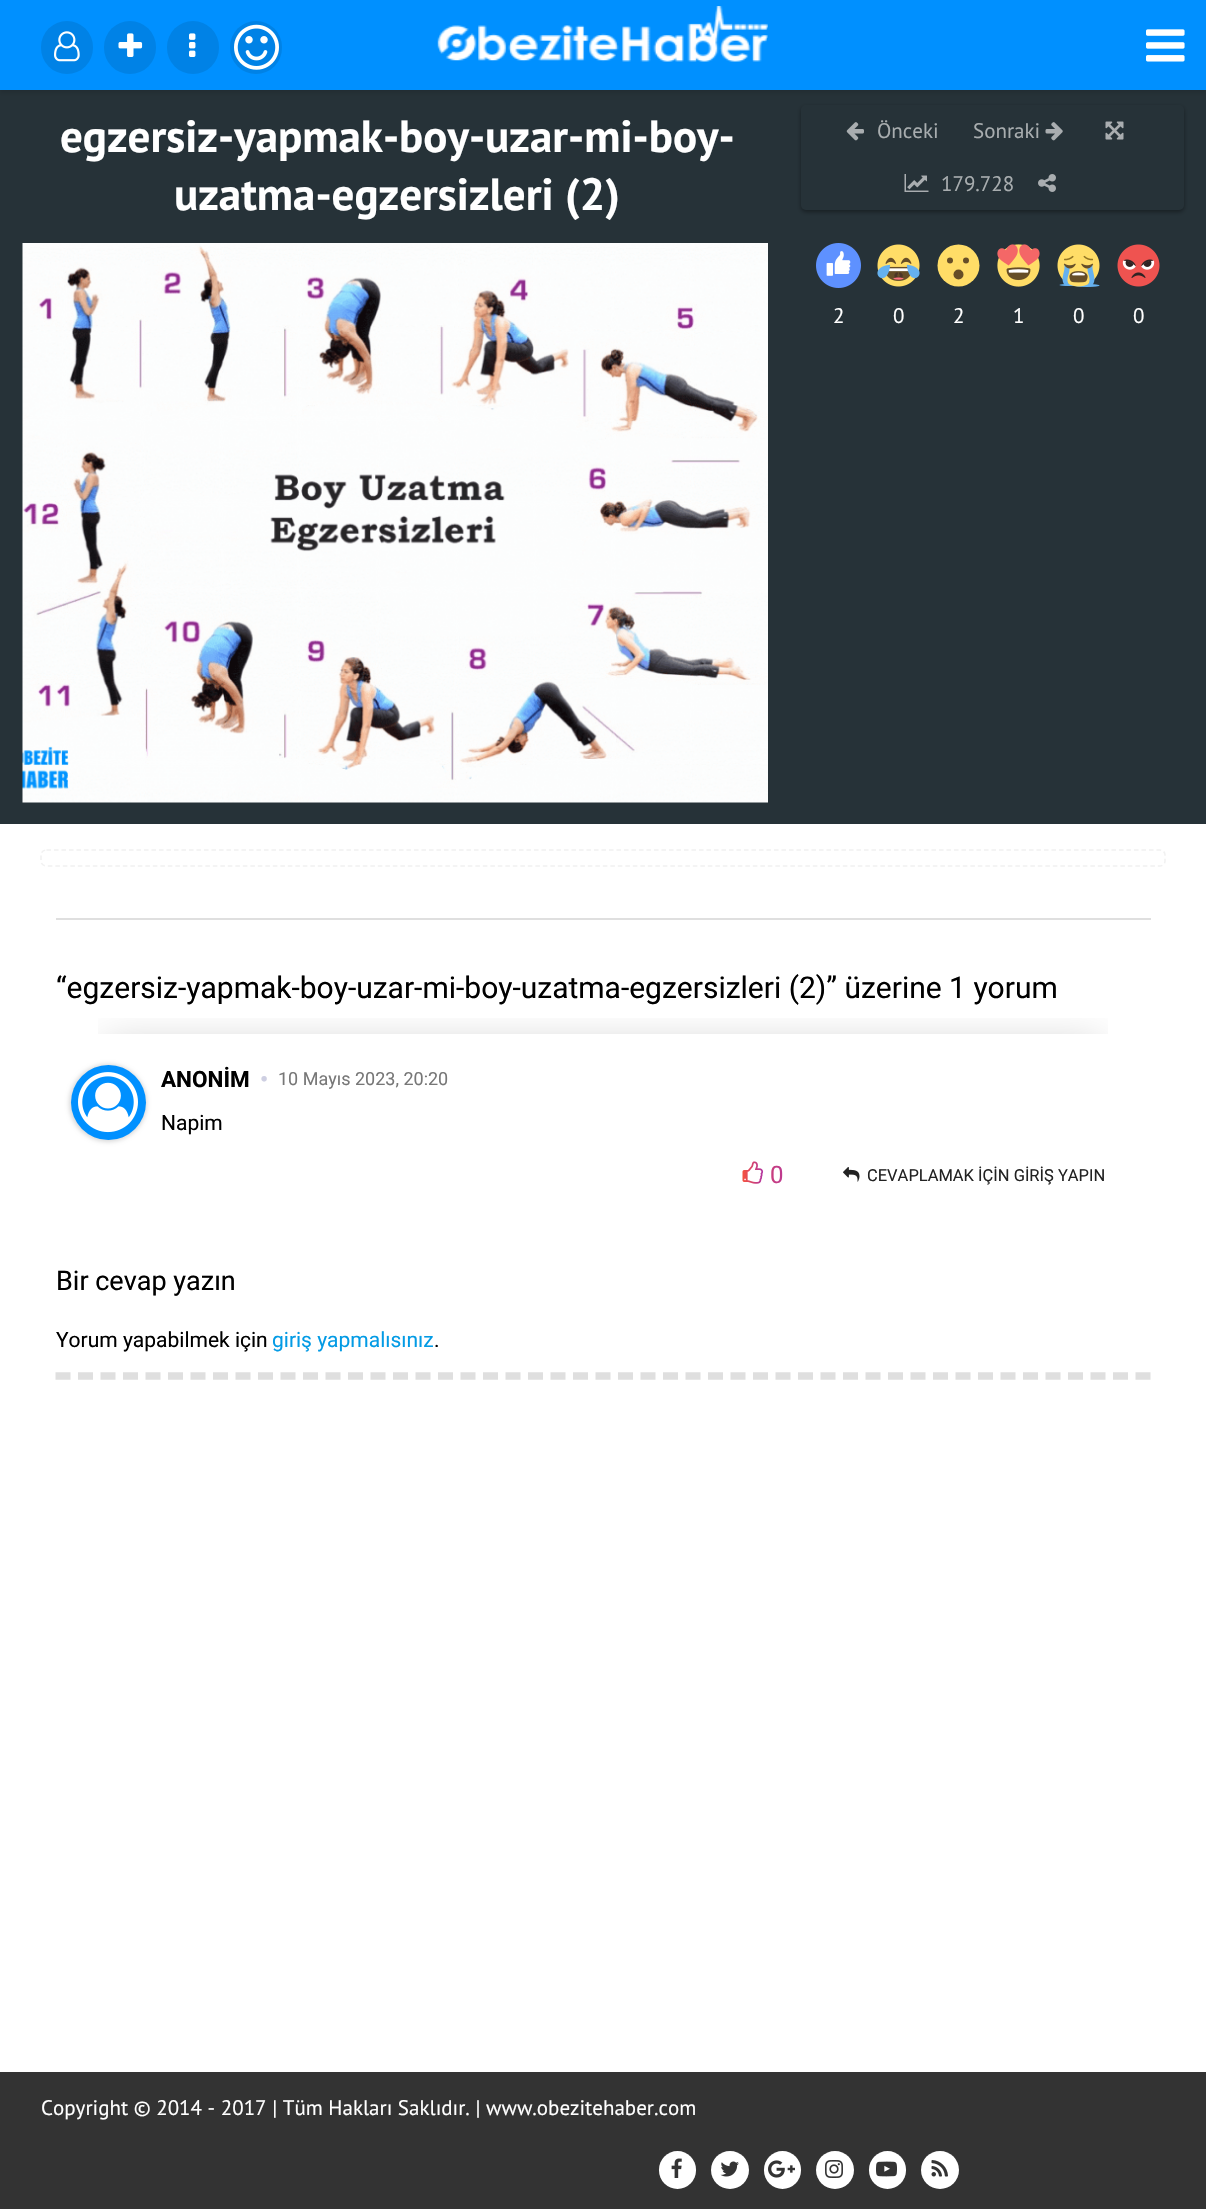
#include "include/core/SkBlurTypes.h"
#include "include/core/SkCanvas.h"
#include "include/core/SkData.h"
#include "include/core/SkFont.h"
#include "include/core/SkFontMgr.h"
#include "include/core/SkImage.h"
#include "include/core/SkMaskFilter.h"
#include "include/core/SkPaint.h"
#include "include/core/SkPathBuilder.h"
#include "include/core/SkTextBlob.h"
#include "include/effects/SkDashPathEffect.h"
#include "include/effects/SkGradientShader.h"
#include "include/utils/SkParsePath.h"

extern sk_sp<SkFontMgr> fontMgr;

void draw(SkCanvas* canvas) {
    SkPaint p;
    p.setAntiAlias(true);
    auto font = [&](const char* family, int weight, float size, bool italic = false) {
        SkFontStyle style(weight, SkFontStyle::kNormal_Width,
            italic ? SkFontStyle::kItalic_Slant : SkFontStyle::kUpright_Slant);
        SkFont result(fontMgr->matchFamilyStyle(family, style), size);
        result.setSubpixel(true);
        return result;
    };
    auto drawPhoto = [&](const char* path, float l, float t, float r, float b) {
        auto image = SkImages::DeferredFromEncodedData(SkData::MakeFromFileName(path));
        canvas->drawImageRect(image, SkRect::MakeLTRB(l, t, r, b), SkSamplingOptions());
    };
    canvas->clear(0xFFFFFFFF);
    p.setColor(0xFF263238);
    canvas->drawRect(SkRect::MakeLTRB(0, 90, 1206, 824), p);
    p.setColor(0x1A000000);
    p.setMaskFilter(SkMaskFilter::MakeBlur(kNormal_SkBlurStyle, 2));
    canvas->drawRect(SkRect::MakeLTRB(0, 3, 1206, 93), p);
    p.setMaskFilter(nullptr);
    p.setColor(0xFF0090FF);
    canvas->drawRect(SkRect::MakeLTRB(0, 0, 1206, 90), p);
    p.setColor(0xFF0082E6);
    canvas->drawRoundRect(SkRect::MakeLTRB(41, 21, 93, 74), 26, 26, p);
    drawPhoto("media/1.png", 54, 31, 80, 62);
    canvas->drawRoundRect(SkRect::MakeLTRB(104, 21, 156, 74), 26, 26, p);
    drawPhoto("media/2.png", 118, 33, 143, 57);
    canvas->drawRoundRect(SkRect::MakeLTRB(167, 21, 219, 74), 26, 26, p);
    drawPhoto("media/3.png", 189, 33, 196, 57);
    canvas->drawRoundRect(SkRect::MakeLTRB(230, 21, 282, 74), 26, 26, p);
    drawPhoto("media/4.png", 234, 24, 279, 70);
    drawPhoto("media/5.png", 437, 6, 768, 62);
    drawPhoto("media/6.png", 1146, 29, 1185, 62);
    auto font1 = font("PT Sans", 700, 45);
    p.setColor(0xFFFFFFFF);
    canvas->drawString("egzersiz-yapmak-boy-uzar-mi-boy-", 60, 152, font1, p);
    canvas->drawString("uzatma-egzersizleri (2)", 174, 210, font1, p);
    p.setColor(0x61000000);
    p.setMaskFilter(SkMaskFilter::MakeBlur(kNormal_SkBlurStyle, 2));
    canvas->drawRoundRect(SkRect::MakeLTRB(801, 107, 1184, 212), 5, 5, p);
    p.setMaskFilter(nullptr);
    p.setColor(0xFF263238);
    canvas->drawRoundRect(SkRect::MakeLTRB(801, 105, 1184, 210), 5, 5, p);
    drawPhoto("media/7.png", 846, 122, 864, 141);
    auto font2 = font("PT Sans", 400, 21);
    p.setColor(0xFFA8ADAF);
    canvas->drawString("Önceki", 877, 138, font2, p);
    canvas->drawString("Sonraki", 973, 138, font2, p);
    drawPhoto("media/8.png", 1045, 122, 1063, 141);
    drawPhoto("media/9.png", 1105, 121, 1124, 140);
    drawPhoto("media/10.png", 904, 174, 929, 192);
    canvas->drawString("179.728", 941, 191, font2, p);
    drawPhoto("media/11.png", 1038, 174, 1056, 192);
    drawPhoto("media/12.png", 816, 243, 861, 288);
    p.setColor(0xFFFFFFFF);
    canvas->drawString("2", 833, 323, font2, p);
    drawPhoto("media/13.png", 877, 244, 920, 287);
    canvas->drawString("0", 893, 323, font2, p);
    p.setColor(0xFFFFDD67);
    canvas->drawCircle(958.5f, 265.5f, 21, p);
    p.setColor(0xFF664E27);
    canvas->drawCircle(950, 260.5f, 3, p);
    canvas->drawCircle(966, 260.5f, 3, p);
    canvas->drawCircle(958.5f, 274.5f, 5, p);
    p.setColor(0xFFFFFFFF);
    canvas->drawString("2", 953, 323, font2, p);
    drawPhoto("media/14.png", 997, 244, 1040, 287);
    canvas->drawString("1", 1013, 323, font2, p);
    drawPhoto("media/15.png", 1057, 244, 1100, 287);
    canvas->drawString("0", 1073, 323, font2, p);
    drawPhoto("media/16.png", 1117, 244, 1160, 287);
    canvas->drawString("0", 1133, 323, font2, p);
    drawPhoto("media/17.png", 22, 243, 768, 803);
    p.setStyle(SkPaint::kStroke_Style);
    p.setStrokeWidth(1.5f);
    p.setColor(0xFFF1F1F1);
    p.setPathEffect(SkDashPathEffect::Make({{4.5f, 3}}, 0));
    canvas->drawPath(SkPathBuilder().moveTo(46.5f, 850).lineTo(1159.5f, 850).cubicTo(1162.5f, 850, 1165, 852, 1165, 855).lineTo(1165, 861).cubicTo(1165, 864, 1162.5f, 866, 1159.5f, 866).lineTo(46.5f, 866).cubicTo(43.5f, 866, 41, 864, 41, 861).lineTo(41, 855).cubicTo(41, 852, 43.5f, 850, 46.5f, 850).close().detach(), p);
    p.setPathEffect(nullptr);
    p.setStyle(SkPaint::kFill_Style);
    p.setColor(0xFFDFDFDF);
    canvas->drawRect(SkRect::MakeLTRB(56, 918, 1151, 920), p);
    p.setStyle(SkPaint::kStroke_Style);
    p.setStrokeWidth(7.5f);
    p.setPathEffect(SkDashPathEffect::Make({{15, 7.5f}}, 0));
    canvas->drawPath(SkPathBuilder().moveTo(55.5f, 1376).lineTo(1150.5f, 1376).detach(), p);
    p.setPathEffect(nullptr);
    auto font3 = font("Roboto", 400, 30);
    p.setStyle(SkPaint::kFill_Style);
    p.setColor(0xFF000000);
    canvas->drawString("“egzersiz-yapmak-boy-uzar-mi-boy-uzatma-egzersizleri (2)” üzerine 1 yorum", 56, 998, font3, p);
    canvas->save();
    canvas->clipRect(SkRect::MakeLTRB(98, 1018, 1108, 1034));
    p.setColor(0x33000000);
    p.setMaskFilter(SkMaskFilter::MakeBlur(kNormal_SkBlurStyle, 20));
    canvas->drawRect(SkRect::MakeLTRB(105, 1044, 1101, 1133), p);
    p.setMaskFilter(nullptr);
    canvas->restore();
    p.setColor(0x26000000);
    p.setMaskFilter(SkMaskFilter::MakeBlur(kNormal_SkBlurStyle, 2));
    canvas->drawRoundRect(SkRect::MakeLTRB(69, 1064, 147, 1142), 39, 39, p);
    p.setMaskFilter(nullptr);
    p.setColor(0xFF0090FF);
    canvas->drawCircle(108.5f, 1102.5f, 37.5f, p);
    drawPhoto("media/18.png", 78, 1072, 138, 1133);
    auto font4 = font("Roboto", 700, 22.5f);
    p.setColor(0xFF000000);
    canvas->drawString("ANONİM", 161, 1087, font4, p);
    p.setColor(0xFFCECFE2);
    canvas->drawString("•", 260, 1087, font4, p);
    auto font5 = font("Roboto", 400, 18);
    p.setColor(0xFF777777);
    canvas->drawString("10 Mayıs 2023, 20:20", 278, 1085, font5, p);
    auto font6 = font("Roboto", 400, 21);
    p.setColor(0xFF000000);
    canvas->drawString("Napim", 161, 1130, font6, p);
    drawPhoto("media/19.png", 742, 1161, 764, 1184);
    auto font7 = font("Roboto", 400, 24);
    {
        const SkColor colors[] = {0xFFF4513F, 0xFFAE32A6};
        const float stops[] = {0, 1};
        const SkPoint ends[] = {{728, 1177}, {798, 1177}};
        p.setShader(SkGradientShader::MakeLinear(ends, colors, stops, 2, SkTileMode::kClamp));
        p.setAlpha(255);
    }
    canvas->drawString("0", 770, 1183, font7, p);
    drawPhoto("media/20.png", 843, 1167, 860, 1182);
    auto font8 = font("Roboto", 400, 16.5f);
    p.setShader(nullptr);
    p.setColor(0xFF222222);
    canvas->drawString("CEVAPLAMAK İÇİN GİRİŞ YAPIN", 867, 1181, font8, p);
    auto font9 = font("Roboto", 400, 27);
    p.setColor(0xFF000000);
    canvas->drawString("Bir cevap yazın", 56, 1290, font9, p);
    canvas->drawString("Yorum yapabilmek için", 56, 1347, font6, p);
    p.setColor(0xFF039BE5);
    canvas->drawString("giriş yapmalısınız", 272, 1347, font6, p);
    p.setColor(0xFF000000);
    canvas->drawString(".", 434, 1347, font6, p);
    p.setColor(0xFF333333);
    canvas->drawRect(SkRect::MakeLTRB(0, 2072, 1206, 2209), p);
    p.setColor(0xFFFFFFFF);
    canvas->drawString("Copyright © 2014 - 2017 | Tüm Hakları Saklıdır. | www.obezitehaber.com", 41, 2115, font2, p);
    canvas->drawRoundRect(SkRect::MakeLTRB(659, 2151, 696, 2189), 18.5f, 18.5f, p);
    drawPhoto("media/21.png", 671, 2158, 682, 2178);
    canvas->drawCircle(730, 2170, 19, p);
    drawPhoto("media/22.png", 720, 2161, 739, 2177);
    canvas->drawRoundRect(SkRect::MakeLTRB(764, 2151, 801, 2189), 18.5f, 18.5f, p);
    drawPhoto("media/23.png", 768, 2160, 795, 2178);
    canvas->drawCircle(835, 2170, 19, p);
    drawPhoto("media/24.png", 825, 2160, 843, 2178);
    canvas->drawRoundRect(SkRect::MakeLTRB(869, 2151, 906, 2189), 18.5f, 18.5f, p);
    drawPhoto("media/25.png", 876, 2161, 897, 2177);
    canvas->drawCircle(940, 2170, 19, p);
    drawPhoto("media/26.png", 931, 2160, 948, 2177);
}
